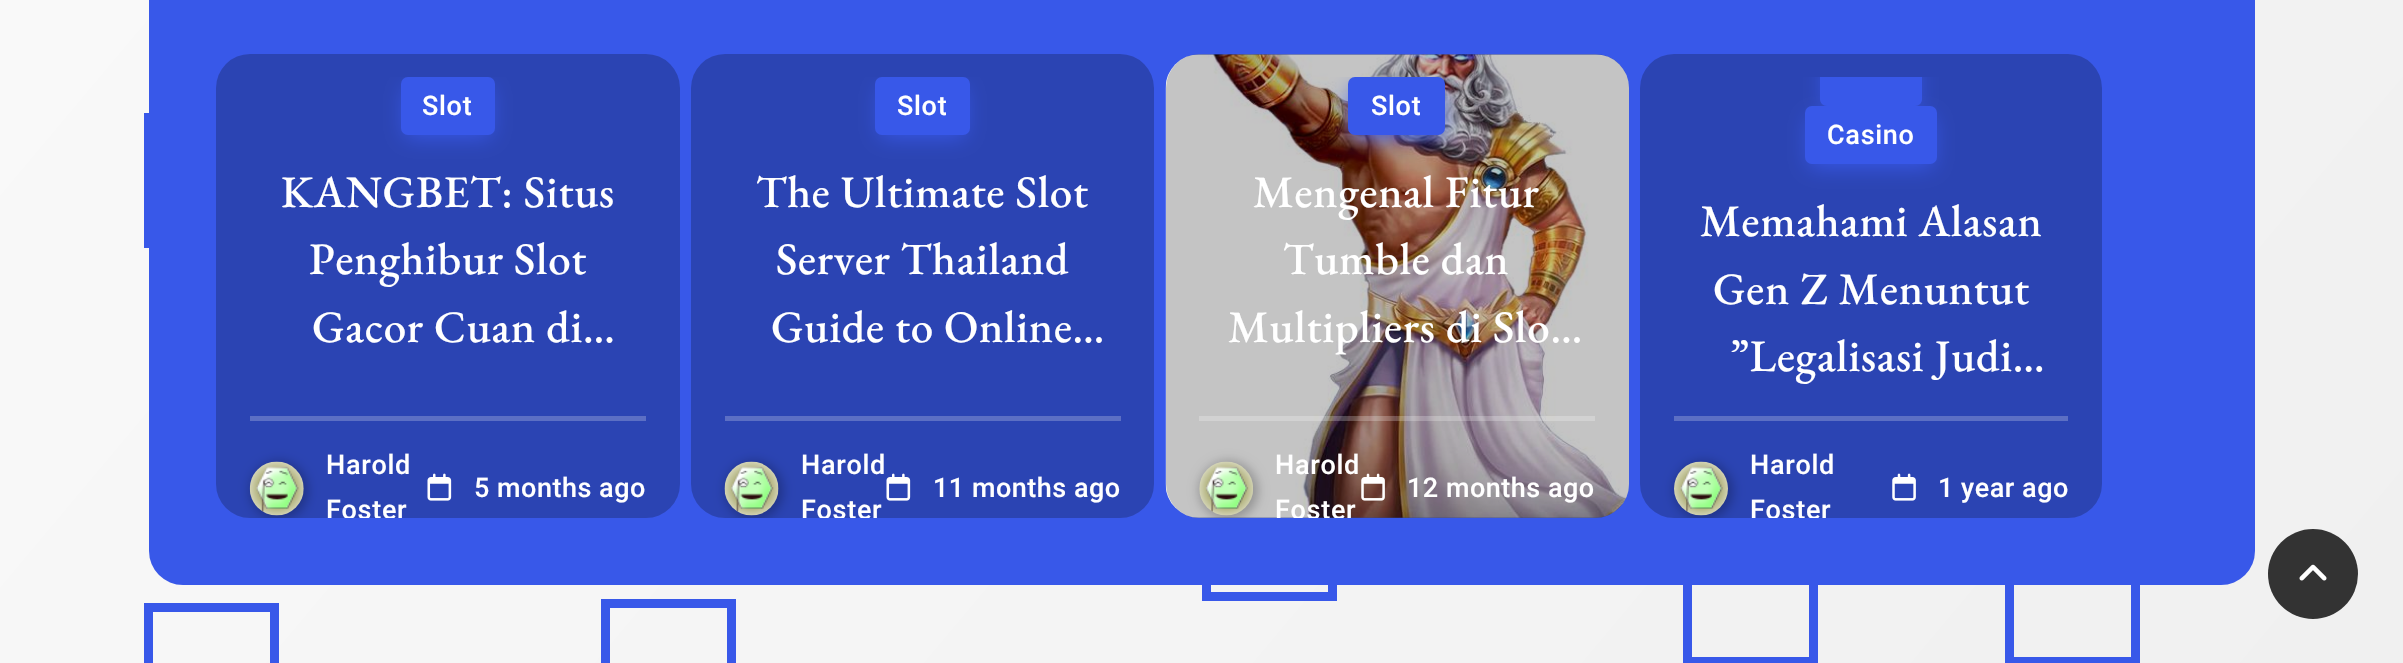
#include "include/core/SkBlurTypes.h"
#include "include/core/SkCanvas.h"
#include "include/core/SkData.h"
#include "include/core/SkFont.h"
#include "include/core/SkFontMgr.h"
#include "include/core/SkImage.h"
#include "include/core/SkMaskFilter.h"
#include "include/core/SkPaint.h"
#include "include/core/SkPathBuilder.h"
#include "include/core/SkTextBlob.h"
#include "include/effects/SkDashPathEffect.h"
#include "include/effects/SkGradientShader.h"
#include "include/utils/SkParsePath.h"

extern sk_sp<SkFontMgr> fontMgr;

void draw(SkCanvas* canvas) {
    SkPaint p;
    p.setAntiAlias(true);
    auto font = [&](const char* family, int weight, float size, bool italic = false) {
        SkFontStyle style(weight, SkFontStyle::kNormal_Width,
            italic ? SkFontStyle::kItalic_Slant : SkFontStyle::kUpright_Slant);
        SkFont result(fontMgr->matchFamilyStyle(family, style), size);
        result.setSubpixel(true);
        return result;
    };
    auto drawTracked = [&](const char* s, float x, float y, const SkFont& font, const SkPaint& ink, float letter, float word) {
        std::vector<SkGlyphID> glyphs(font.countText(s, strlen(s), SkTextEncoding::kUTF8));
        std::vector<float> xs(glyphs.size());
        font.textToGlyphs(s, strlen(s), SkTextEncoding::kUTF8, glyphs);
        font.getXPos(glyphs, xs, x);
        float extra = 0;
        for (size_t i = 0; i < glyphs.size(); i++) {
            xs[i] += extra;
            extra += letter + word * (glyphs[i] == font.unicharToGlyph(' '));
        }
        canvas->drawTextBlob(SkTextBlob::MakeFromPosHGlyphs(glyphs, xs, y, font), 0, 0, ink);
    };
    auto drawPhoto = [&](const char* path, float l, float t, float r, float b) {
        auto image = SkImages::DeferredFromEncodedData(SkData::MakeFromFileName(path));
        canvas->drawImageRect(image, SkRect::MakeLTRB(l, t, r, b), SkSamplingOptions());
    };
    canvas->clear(0xFFFFFFFF);
    {
        const SkColor colors[] = {0xFFF9F9F9, 0xFFF0F0F0};
        const float stops[] = {0, 1};
        const SkPoint ends[] = {{333, -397}, {2070, 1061}};
        p.setShader(SkGradientShader::MakeLinear(ends, colors, stops, 2, SkTileMode::kClamp));
        p.setAlpha(255);
    }
    canvas->drawRect(SkRect::MakeLTRB(0, 0, 2403, 663), p);
    p.setStyle(SkPaint::kStroke_Style);
    p.setStrokeWidth(9);
    p.setShader(nullptr);
    p.setColor(0xFF3858E9);
    canvas->drawRect(SkRect::MakeLTRB(148.5f, 117.5f, 274.5f, 243.5f), p);
    canvas->drawRect(SkRect::MakeLTRB(1206.5f, 470.5f, 1332.5f, 596.5f), p);
    canvas->drawRect(SkRect::MakeLTRB(1687.5f, 535.5f, 1813.5f, 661.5f), p);
    canvas->drawRect(SkRect::MakeLTRB(2009.5f, 535.5f, 2135.5f, 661.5f), p);
    p.setStyle(SkPaint::kFill_Style);
    canvas->drawRoundRect(SkRect::MakeLTRB(149, -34, 2255, 585), 34, 34, p);
    p.setColor(0xFF2B44B3);
    canvas->drawRoundRect(SkRect::MakeLTRB(216, 54, 680, 518), 34, 34, p);
    canvas->save();
    canvas->clipRect(SkRect::MakeLTRB(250, 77, 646, 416));
    p.setColor(0xFF3858E9);
    p.setMaskFilter(SkMaskFilter::MakeBlur(kNormal_SkBlurStyle, 11));
    canvas->drawRoundRect(SkRect::MakeLTRB(405, 88, 491, 137), 2, 2, p);
    p.setMaskFilter(nullptr);
    canvas->restore();
    canvas->drawRoundRect(SkRect::MakeLTRB(401, 77, 495, 135), 7, 7, p);
    auto font1 = font("Roboto", 500, 27);
    p.setColor(0xFFFFFFFF);
    drawTracked("Slot", 422, 115, font1, p, 0.7f, 0);
    auto font2 = font("EB Garamond", 500, 45);
    {
        const struct { const char* s; float x, y; } items[] = {
            {"KANGBET: Situs", 281, 207},
            {"Penghibur Slot", 309, 274},
            {"Gacor Cuan di…", 312, 342},
        };
        for (auto [s, x, y] : items) {
            drawTracked(s, x, y, font2, p, 0.7f, 0);
        }
    }
    p.setColor(0xFF5C6FC4);
    canvas->drawRect(SkRect::MakeLTRB(250, 416, 646, 421), p);
    canvas->save();
    canvas->clipPath(SkPathBuilder().moveTo(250, 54).lineTo(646, 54).cubicTo(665, 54, 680, 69, 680, 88).lineTo(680, 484).cubicTo(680, 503, 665, 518, 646, 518).lineTo(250, 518).cubicTo(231, 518, 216, 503, 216, 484).lineTo(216, 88).cubicTo(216, 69, 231, 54, 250, 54).close().detach(), true);
    p.setColor(0x40000000);
    p.setMaskFilter(SkMaskFilter::MakeBlur(kNormal_SkBlurStyle, 5.5f));
    canvas->drawRoundRect(SkRect::MakeLTRB(250, 461, 308, 520), 29, 29, p);
    p.setMaskFilter(nullptr);
    canvas->restore();
    drawPhoto("media/1.png", 249, 461, 304, 516);
    p.setColor(0xFFFFFFFF);
    drawTracked("Harold", 326, 474, font1, p, 0.7f, 0);
    canvas->save();
    canvas->clipPath(SkPathBuilder().moveTo(250, 54).lineTo(646, 54).cubicTo(665, 54, 680, 69, 680, 88).lineTo(680, 484).cubicTo(680, 503, 665, 518, 646, 518).lineTo(250, 518).cubicTo(231, 518, 216, 503, 216, 484).lineTo(216, 88).cubicTo(216, 69, 231, 54, 250, 54).close().detach(), true);
    drawTracked("Foster", 326, 519, font1, p, 0.7f, 0);
    canvas->restore();
    drawPhoto("media/2.png", 427, 473, 452, 501);
    drawTracked("5 months ago", 474, 497, font1, p, 0.5f, 0);
    canvas->save();
    canvas->clipPath(SkPathBuilder().moveTo(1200, 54).lineTo(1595, 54).cubicTo(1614, 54, 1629, 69, 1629, 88).lineTo(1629, 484).cubicTo(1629, 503, 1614, 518, 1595, 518).lineTo(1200, 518).cubicTo(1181, 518, 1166, 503, 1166, 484).lineTo(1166, 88).cubicTo(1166, 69, 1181, 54, 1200, 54).close().detach(), true);
    p.setColor(0x544A4D54);
    p.setMaskFilter(SkMaskFilter::MakeBlur(kNormal_SkBlurStyle, 17));
    canvas->drawRect(SkRect::MakeLTRB(1166, 65, 1629, 529), p);
    p.setMaskFilter(nullptr);
    canvas->restore();
    p.setColor(0xFF2B44B3);
    canvas->drawRoundRect(SkRect::MakeLTRB(691, 54, 1154, 518), 34, 34, p);
    canvas->save();
    canvas->clipRect(SkRect::MakeLTRB(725, 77, 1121, 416));
    p.setColor(0xFF3858E9);
    p.setMaskFilter(SkMaskFilter::MakeBlur(kNormal_SkBlurStyle, 11));
    canvas->drawRoundRect(SkRect::MakeLTRB(880, 88, 965, 137), 2, 2, p);
    p.setMaskFilter(nullptr);
    canvas->restore();
    canvas->drawRoundRect(SkRect::MakeLTRB(875, 77, 970, 135), 7, 7, p);
    p.setColor(0xFFFFFFFF);
    drawTracked("Slot", 897, 115, font1, p, 0.7f, 0);
    {
        const struct { const char* s; float x, y; } items[] = {
            {"The Ultimate Slot", 756, 207},
            {"Server Thailand", 776, 274},
            {"Guide to Online…", 771, 342},
        };
        for (auto [s, x, y] : items) {
            drawTracked(s, x, y, font2, p, 0.7f, 0);
        }
    }
    p.setColor(0xFF5C6FC4);
    canvas->drawRect(SkRect::MakeLTRB(725, 416, 1121, 421), p);
    canvas->save();
    canvas->clipPath(SkPathBuilder().moveTo(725, 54).lineTo(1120, 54).cubicTo(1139, 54, 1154, 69, 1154, 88).lineTo(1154, 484).cubicTo(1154, 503, 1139, 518, 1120, 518).lineTo(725, 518).cubicTo(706, 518, 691, 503, 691, 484).lineTo(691, 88).cubicTo(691, 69, 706, 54, 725, 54).close().detach(), true);
    p.setColor(0x40000000);
    p.setMaskFilter(SkMaskFilter::MakeBlur(kNormal_SkBlurStyle, 5.5f));
    canvas->drawRoundRect(SkRect::MakeLTRB(725, 461, 783, 520), 29, 29, p);
    p.setMaskFilter(nullptr);
    canvas->restore();
    drawPhoto("media/3.png", 724, 461, 779, 516);
    p.setColor(0xFFFFFFFF);
    drawTracked("Harold", 801, 474, font1, p, 0.7f, 0);
    canvas->save();
    canvas->clipPath(SkPathBuilder().moveTo(725, 54).lineTo(1120, 54).cubicTo(1139, 54, 1154, 69, 1154, 88).lineTo(1154, 484).cubicTo(1154, 503, 1139, 518, 1120, 518).lineTo(725, 518).cubicTo(706, 518, 691, 503, 691, 484).lineTo(691, 88).cubicTo(691, 69, 706, 54, 725, 54).close().detach(), true);
    drawTracked("Foster", 801, 519, font1, p, 0.7f, 0);
    canvas->restore();
    drawPhoto("media/2.png", 886, 473, 911, 501);
    drawTracked("11 months ago", 933, 497, font1, p, 0.5f, 0);
    drawPhoto("media/4.png", 1165, 54, 1629, 518);
    p.setColor(0x3B000000);
    canvas->drawRoundRect(SkRect::MakeLTRB(1166, 54, 1629, 518), 34, 34, p);
    canvas->save();
    canvas->clipRect(SkRect::MakeLTRB(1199, 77, 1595, 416));
    p.setColor(0xFF3858E9);
    p.setMaskFilter(SkMaskFilter::MakeBlur(kNormal_SkBlurStyle, 11));
    canvas->drawRoundRect(SkRect::MakeLTRB(1352, 88, 1440, 137), 2, 2, p);
    p.setMaskFilter(nullptr);
    canvas->restore();
    canvas->drawRoundRect(SkRect::MakeLTRB(1348, 77, 1445, 135), 7, 7, p);
    p.setColor(0xFFFFFFFF);
    drawTracked("Slot", 1371, 115, font1, p, 0.7f, 0);
    {
        const struct { const char* s; float x, y; } items[] = {
            {"Mengenal Fitur", 1253, 207},
            {"Tumble dan", 1283, 274},
            {"Multipliers di Slo…", 1228, 342},
        };
        for (auto [s, x, y] : items) {
            drawTracked(s, x, y, font2, p, 0.7f, 0);
        }
    }
    p.setColor(0x3BFFFFFF);
    canvas->drawRect(SkRect::MakeLTRB(1199, 416, 1595, 421), p);
    canvas->save();
    canvas->clipPath(SkPathBuilder().moveTo(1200, 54).lineTo(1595, 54).cubicTo(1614, 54, 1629, 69, 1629, 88).lineTo(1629, 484).cubicTo(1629, 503, 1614, 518, 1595, 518).lineTo(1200, 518).cubicTo(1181, 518, 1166, 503, 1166, 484).lineTo(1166, 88).cubicTo(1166, 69, 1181, 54, 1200, 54).close().detach(), true);
    p.setColor(0x40000000);
    p.setMaskFilter(SkMaskFilter::MakeBlur(kNormal_SkBlurStyle, 5.5f));
    canvas->drawRoundRect(SkRect::MakeLTRB(1199, 461, 1258, 520), 29.5f, 29.5f, p);
    p.setMaskFilter(nullptr);
    canvas->restore();
    drawPhoto("media/5.png", 1199, 461, 1253, 516);
    p.setColor(0xFFFFFFFF);
    drawTracked("Harold", 1275, 474, font1, p, 0.7f, 0);
    canvas->save();
    canvas->clipPath(SkPathBuilder().moveTo(1200, 54).lineTo(1595, 54).cubicTo(1614, 54, 1629, 69, 1629, 88).lineTo(1629, 484).cubicTo(1629, 503, 1614, 518, 1595, 518).lineTo(1200, 518).cubicTo(1181, 518, 1166, 503, 1166, 484).lineTo(1166, 88).cubicTo(1166, 69, 1181, 54, 1200, 54).close().detach(), true);
    drawTracked("Foster", 1275, 519, font1, p, 0.7f, 0);
    canvas->restore();
    drawPhoto("media/6.png", 1361, 473, 1385, 501);
    drawTracked("12 months ago", 1407, 497, font1, p, 0.5f, 0);
    p.setColor(0xFF2B44B3);
    canvas->drawRoundRect(SkRect::MakeLTRB(1640, 54, 2102, 518), 34, 34, p);
    canvas->save();
    canvas->clipRect(SkRect::MakeLTRB(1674, 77, 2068, 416));
    p.setColor(0xFF3858E9);
    p.setMaskFilter(SkMaskFilter::MakeBlur(kNormal_SkBlurStyle, 11));
    canvas->drawRoundRect(SkRect::MakeLTRB(1825, 59, 1917, 108), 2, 2, p);
    p.setMaskFilter(nullptr);
    canvas->restore();
    canvas->drawPath(SkPathBuilder().moveTo(1820, 77).lineTo(1922, 77).lineTo(1922, 99).cubicTo(1922, 103, 1919, 106, 1915, 106).lineTo(1827, 106).cubicTo(1823, 106, 1820, 103, 1820, 99).close().detach(), p);
    p.setMaskFilter(SkMaskFilter::MakeBlur(kNormal_SkBlurStyle, 11));
    canvas->drawRoundRect(SkRect::MakeLTRB(1809, 117, 1933, 167), 2, 2, p);
    p.setMaskFilter(nullptr);
    canvas->drawRoundRect(SkRect::MakeLTRB(1805, 106, 1937, 164), 7, 7, p);
    p.setColor(0xFFFFFFFF);
    drawTracked("Casino", 1827, 144, font1, p, 0.7f, 0);
    {
        const struct { const char* s; float x, y; } items[] = {
            {"Memahami Alasan", 1700, 236},
            {"Gen Z Menuntut", 1713, 304},
            {"”Legalisasi Judi…", 1730, 371},
        };
        for (auto [s, x, y] : items) {
            drawTracked(s, x, y, font2, p, 0.7f, 0);
        }
    }
    p.setColor(0xFF5C6FC4);
    canvas->drawRect(SkRect::MakeLTRB(1674, 416, 2068, 421), p);
    canvas->save();
    canvas->clipPath(SkPathBuilder().moveTo(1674, 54).lineTo(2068, 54).cubicTo(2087, 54, 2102, 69, 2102, 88).lineTo(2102, 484).cubicTo(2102, 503, 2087, 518, 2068, 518).lineTo(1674, 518).cubicTo(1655, 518, 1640, 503, 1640, 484).lineTo(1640, 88).cubicTo(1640, 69, 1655, 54, 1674, 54).close().detach(), true);
    p.setColor(0x40000000);
    p.setMaskFilter(SkMaskFilter::MakeBlur(kNormal_SkBlurStyle, 5.5f));
    canvas->drawRoundRect(SkRect::MakeLTRB(1674, 461, 1733, 520), 29.5f, 29.5f, p);
    p.setMaskFilter(nullptr);
    canvas->restore();
    drawPhoto("media/7.png", 1674, 461, 1728, 516);
    p.setColor(0xFFFFFFFF);
    drawTracked("Harold", 1750, 474, font1, p, 0.7f, 0);
    canvas->save();
    canvas->clipPath(SkPathBuilder().moveTo(1674, 54).lineTo(2068, 54).cubicTo(2087, 54, 2102, 69, 2102, 88).lineTo(2102, 484).cubicTo(2102, 503, 2087, 518, 2068, 518).lineTo(1674, 518).cubicTo(1655, 518, 1640, 503, 1640, 484).lineTo(1640, 88).cubicTo(1640, 69, 1655, 54, 1674, 54).close().detach(), true);
    drawTracked("Foster", 1750, 519, font1, p, 0.7f, 0);
    canvas->restore();
    drawPhoto("media/8.png", 1892, 473, 1916, 501);
    drawTracked("1 year ago", 1938, 497, font1, p, 0.5f, 0);
    p.setColor(0xFF333333);
    canvas->drawCircle(2313, 574, 45, p);
    drawPhoto("media/9.png", 2299, 564, 2327, 581);
    p.setStyle(SkPaint::kStroke_Style);
    p.setColor(0xFF3858E9);
    canvas->drawRect(SkRect::MakeLTRB(148.5f, 607.5f, 274.5f, 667.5f), p);
    canvas->drawRect(SkRect::MakeLTRB(605.5f, 603.5f, 731.5f, 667.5f), p);
}
